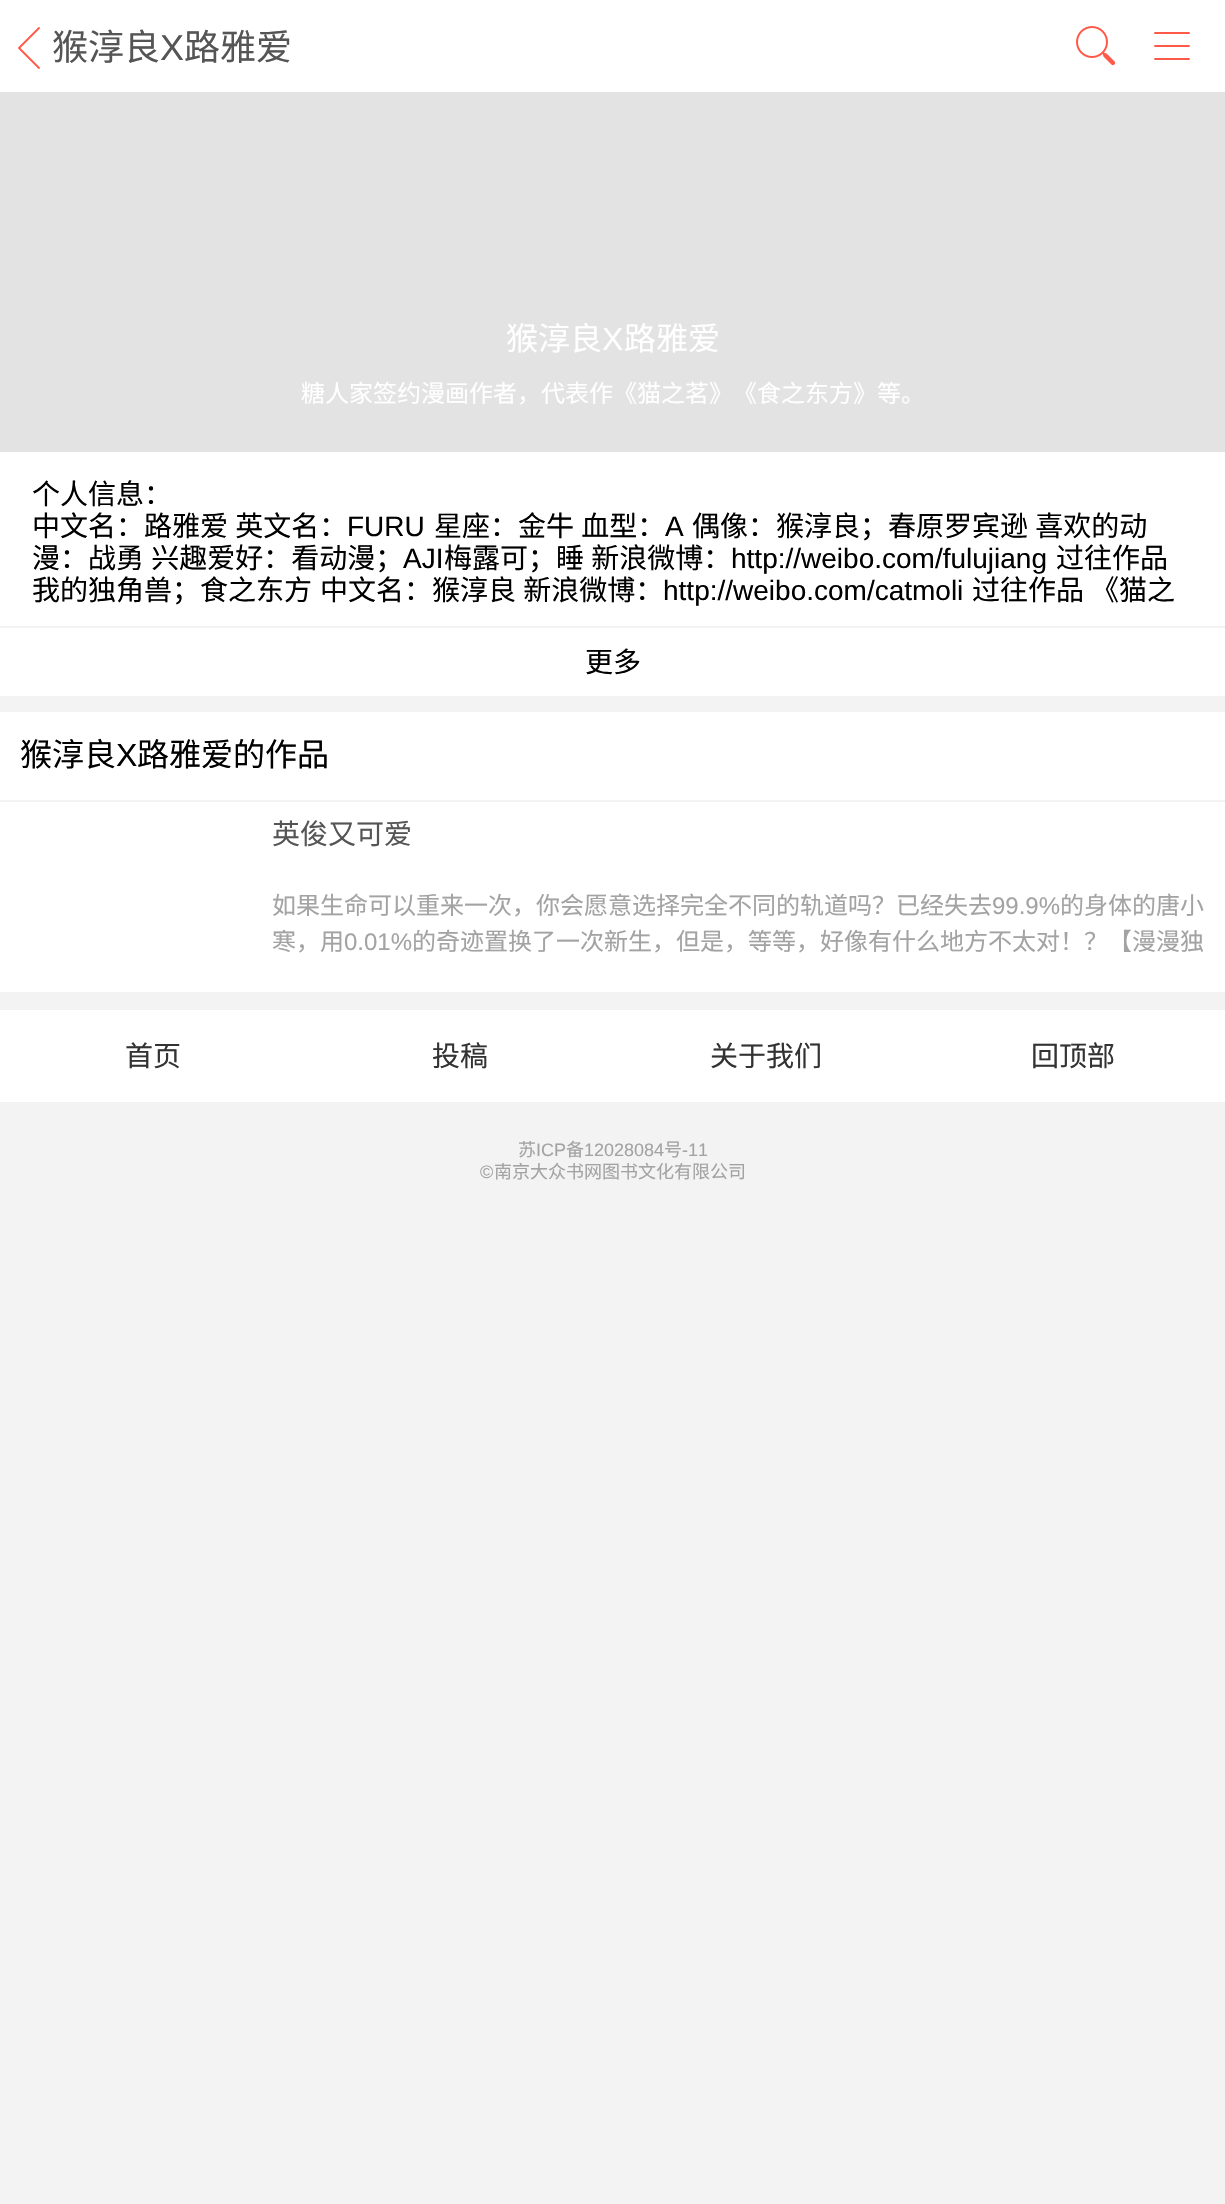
#include "include/core/SkBlurTypes.h"
#include "include/core/SkCanvas.h"
#include "include/core/SkData.h"
#include "include/core/SkFont.h"
#include "include/core/SkFontMgr.h"
#include "include/core/SkImage.h"
#include "include/core/SkMaskFilter.h"
#include "include/core/SkPaint.h"
#include "include/core/SkPathBuilder.h"
#include "include/core/SkTextBlob.h"
#include "include/effects/SkDashPathEffect.h"
#include "include/effects/SkGradientShader.h"
#include "include/utils/SkParsePath.h"

extern sk_sp<SkFontMgr> fontMgr;

void draw(SkCanvas* canvas) {
    SkPaint p;
    p.setAntiAlias(true);
    auto font = [&](const char* family, int weight, float size, bool italic = false) {
        SkFontStyle style(weight, SkFontStyle::kNormal_Width,
            italic ? SkFontStyle::kItalic_Slant : SkFontStyle::kUpright_Slant);
        SkFont result(fontMgr->matchFamilyStyle(family, style), size);
        result.setSubpixel(true);
        return result;
    };
    auto drawTracked = [&](const char* s, float x, float y, const SkFont& font, const SkPaint& ink, float letter, float word) {
        std::vector<SkGlyphID> glyphs(font.countText(s, strlen(s), SkTextEncoding::kUTF8));
        std::vector<float> xs(glyphs.size());
        font.textToGlyphs(s, strlen(s), SkTextEncoding::kUTF8, glyphs);
        font.getXPos(glyphs, xs, x);
        float extra = 0;
        for (size_t i = 0; i < glyphs.size(); i++) {
            xs[i] += extra;
            extra += letter + word * (glyphs[i] == font.unicharToGlyph(' '));
        }
        canvas->drawTextBlob(SkTextBlob::MakeFromPosHGlyphs(glyphs, xs, y, font), 0, 0, ink);
    };
    auto drawPhoto = [&](const char* path, float l, float t, float r, float b) {
        auto image = SkImages::DeferredFromEncodedData(SkData::MakeFromFileName(path));
        canvas->drawImageRect(image, SkRect::MakeLTRB(l, t, r, b), SkSamplingOptions());
    };
    canvas->clear(0xFFF3F3F3);
    p.setColor(0xFFFFFFFF);
    canvas->drawRect(SkRect::MakeLTRB(0, 0, 1225, 92), p);
    drawPhoto("media/1.png", 18, 27, 40, 69);
    auto font1 = font("Noto Sans CJK SC", 400, 36);
    p.setColor(0xFF555555);
    canvas->drawString("猴淳良", 52, 60, font1, p);
    auto font2 = font("Liberation Sans", 400, 36);
    canvas->drawString("X", 160, 60, font2, p);
    canvas->drawString("路雅爱", 184, 60, font1, p);
    drawPhoto("media/2.png", 1076, 26, 1116, 66);
    drawPhoto("media/3.png", 1154, 32, 1190, 60);
    p.setColor(0xFFFFFFFF);
    canvas->drawRect(SkRect::MakeLTRB(0, 452, 1225, 696), p);
    p.setColor(0xFFE3E3E3);
    canvas->drawRect(SkRect::MakeLTRB(0, 92, 1225, 452), p);
    auto font3 = font("Noto Sans CJK SC", 400, 32);
    p.setColor(0xFFFFFFFF);
    canvas->drawString("猴淳良", 506, 350, font3, p);
    auto font4 = font("Liberation Sans", 400, 32);
    canvas->drawString("X", 602, 350, font4, p);
    canvas->drawString("路雅爱", 624, 350, font3, p);
    auto font5 = font("Noto Sans CJK SC", 400, 24);
    canvas->drawString("糖人家签约漫画作者，代表作《猫之茗》《食之东方》等。", 301, 402, font5, p);
    auto font6 = font("Noto Sans CJK SC", 400, 28);
    p.setColor(0xFF000000);
    canvas->drawString("个人信息：", 32, 504, font6, p);
    drawTracked("中文名：路雅爱 英文名：", 32, 536, font6, p, 0, 1);
    auto font7 = font("Liberation Sans", 400, 28);
    canvas->drawString("FURU", 347, 536, font7, p);
    drawTracked("星座：金牛 血型：", 434, 536, font6, p, 0, 1);
    canvas->drawString("A", 665, 536, font7, p);
    drawTracked("偶像：猴淳良；春原罗宾逊 喜欢的动", 692, 536, font6, p, 0, 1);
    drawTracked("漫：战勇 兴趣爱好：看动漫；", 32, 568, font6, p, 0, 1);
    canvas->drawString("AJI", 403, 568, font7, p);
    drawTracked("梅露可；睡 新浪微博：", 444, 568, font6, p, 0, 1);
    canvas->drawString("http://weibo.com/fulujiang", 731, 568, font7, p);
    canvas->drawString("过往作品", 1056, 568, font6, p);
    canvas->drawString("我的独角兽；食之东方", 32, 600, font6, p);
    drawTracked("中文名：猴淳良 新浪微博：", 320, 600, font6, p, 0, 1);
    canvas->drawString("http://weibo.com/catmoli", 663, 600, font7, p);
    canvas->drawString("过往作品", 972, 600, font6, p);
    canvas->drawString("《猫之", 1091, 600, font6, p);
    p.setColor(0xFFF3F3F3);
    canvas->drawRect(SkRect::MakeLTRB(0, 626, 1225, 628), p);
    p.setColor(0xFF000000);
    canvas->drawString("更多", 585, 672, font6, p);
    p.setColor(0xFFFFFFFF);
    canvas->drawRect(SkRect::MakeLTRB(0, 712, 1225, 992), p);
    p.setColor(0xFF000000);
    canvas->drawString("猴淳良", 20, 766, font3, p);
    canvas->drawString("X", 116, 766, font4, p);
    canvas->drawString("路雅爱的作品", 137, 766, font3, p);
    p.setColor(0xFFF3F3F3);
    canvas->drawRect(SkRect::MakeLTRB(0, 800, 1225, 802), p);
    p.setColor(0xFF555555);
    canvas->drawString("英俊又可爱", 272, 844, font6, p);
    p.setColor(0xFFA3A3A3);
    canvas->drawString("如果生命可以重来一次，你会愿意选择完全不同的轨道吗？已经失去", 272, 914, font5, p);
    auto font8 = font("Liberation Sans", 400, 24);
    canvas->drawString("99.9%", 992, 914, font8, p);
    canvas->drawString("的身体的唐小", 1060, 914, font5, p);
    canvas->drawString("寒，用", 272, 950, font5, p);
    canvas->drawString("0.01%", 344, 950, font8, p);
    canvas->drawString("的奇迹置换了一次新生，但是，等等，好像有什么地方不太对！？【漫漫独", 412, 950, font5, p);
    p.setColor(0xFFFFFFFF);
    canvas->drawRect(SkRect::MakeLTRB(0, 1010, 1225, 1102), p);
    p.setColor(0xFF333333);
    {
        const struct { const char* s; float x, y; } items[] = {
            {"首页", 125, 1066},
            {"投稿", 432, 1066},
            {"关于我们", 710, 1066},
            {"回顶部", 1031, 1066},
        };
        for (auto [s, x, y] : items) {
            canvas->drawString(s, x, y, font6, p);
        }
    }
    auto font9 = font("Noto Sans CJK SC", 400, 18);
    p.setColor(0xFFA3A3A3);
    canvas->drawString("苏", 518, 1156, font9, p);
    auto font10 = font("Liberation Sans", 400, 18);
    canvas->drawString("ICP", 536, 1156, font10, p);
    canvas->drawString("备", 566, 1156, font9, p);
    canvas->drawString("12028084", 584, 1156, font10, p);
    canvas->drawString("号", 664, 1156, font9, p);
    canvas->drawString("-11", 682, 1156, font10, p);
    canvas->drawString("©", 480, 1178, font10, p);
    canvas->drawString("南京大众书网图书文化有限公司", 494, 1178, font9, p);
}
